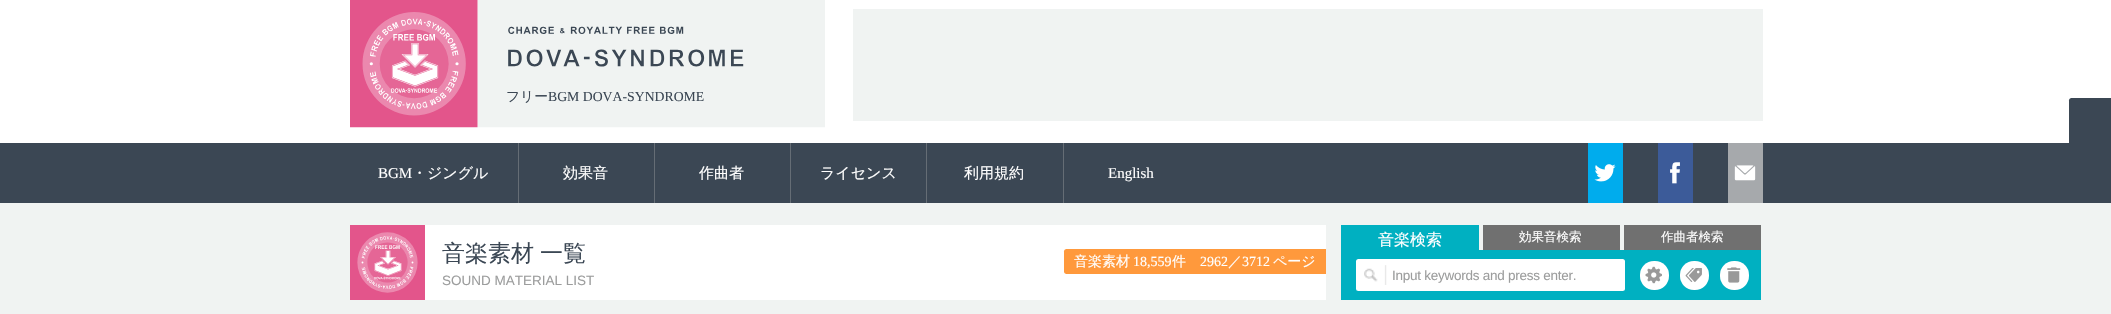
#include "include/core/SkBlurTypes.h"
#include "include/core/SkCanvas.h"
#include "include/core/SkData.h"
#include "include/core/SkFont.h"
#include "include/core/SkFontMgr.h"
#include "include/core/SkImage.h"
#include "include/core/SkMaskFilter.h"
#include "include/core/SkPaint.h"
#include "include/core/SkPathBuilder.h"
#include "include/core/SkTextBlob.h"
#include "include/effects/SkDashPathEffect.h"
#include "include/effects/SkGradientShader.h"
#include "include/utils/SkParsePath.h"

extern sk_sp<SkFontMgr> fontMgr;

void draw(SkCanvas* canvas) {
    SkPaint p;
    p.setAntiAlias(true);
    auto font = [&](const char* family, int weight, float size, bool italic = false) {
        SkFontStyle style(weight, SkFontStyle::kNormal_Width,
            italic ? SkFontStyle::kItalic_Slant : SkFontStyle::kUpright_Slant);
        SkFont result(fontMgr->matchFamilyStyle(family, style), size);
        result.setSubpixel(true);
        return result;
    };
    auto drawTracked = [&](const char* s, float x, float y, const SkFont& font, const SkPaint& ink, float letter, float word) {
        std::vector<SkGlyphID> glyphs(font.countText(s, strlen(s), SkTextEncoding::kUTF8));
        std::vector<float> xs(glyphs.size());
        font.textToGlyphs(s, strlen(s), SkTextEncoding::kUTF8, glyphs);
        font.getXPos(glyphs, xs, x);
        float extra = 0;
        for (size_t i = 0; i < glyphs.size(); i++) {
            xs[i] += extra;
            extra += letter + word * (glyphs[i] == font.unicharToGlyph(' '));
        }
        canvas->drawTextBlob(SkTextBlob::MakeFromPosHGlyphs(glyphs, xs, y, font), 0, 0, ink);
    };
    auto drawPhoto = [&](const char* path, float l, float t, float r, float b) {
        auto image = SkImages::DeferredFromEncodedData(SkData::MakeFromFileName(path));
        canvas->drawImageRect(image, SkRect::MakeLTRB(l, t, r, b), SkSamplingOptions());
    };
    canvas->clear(0xFFF0F3F2);
    p.setColor(0xFFFFFFFF);
    canvas->drawRect(SkRect::MakeLTRB(0, 0, 2111, 143), p);
    drawPhoto("media/1.png", 350, 0, 825, 128);
    auto font1 = font("WenQuanYi Zen Hei", 500, 13.75f);
    p.setColor(0xFF3B4754);
    canvas->drawString("フリー", 506, 101, font1, p);
    auto font2 = font("Liberation Serif", 400, 13.75f);
    canvas->drawString("BGM DOVA-SYNDROME", 548, 101, font2, p);
    p.setColor(0xFFF0F3F2);
    canvas->drawRect(SkRect::MakeLTRB(853, 9, 1763, 121), p);
    p.setColor(0xFF3B4754);
    canvas->drawRect(SkRect::MakeLTRB(0, 143, 2111, 203), p);
    canvas->drawPath(SkPathBuilder().moveTo(2071.5f, 98).lineTo(2111, 98).lineTo(2111, 145).lineTo(2071.5f, 145).cubicTo(2070, 145, 2069, 144, 2069, 142.5f).lineTo(2069, 100.5f).cubicTo(2069, 99, 2070, 98, 2071.5f, 98).close().detach(), p);
    p.setColor(0xFF656D75);
    canvas->drawRect(SkRect::MakeLTRB(518, 143, 519, 203), p);
    auto font3 = font("Liberation Serif", 400, 15);
    p.setColor(0xFFFFFFFF);
    canvas->drawString("BGM", 378, 178, font3, p);
    auto font4 = font("WenQuanYi Zen Hei", 500, 15);
    canvas->drawString("・ジングル", 412, 178, font4, p);
    p.setColor(0xFF656D75);
    canvas->drawRect(SkRect::MakeLTRB(654, 143, 655, 203), p);
    p.setColor(0xFFFFFFFF);
    canvas->drawString("効果音", 563, 178, font4, p);
    p.setColor(0xFF656D75);
    canvas->drawRect(SkRect::MakeLTRB(790, 143, 791, 203), p);
    p.setColor(0xFFFFFFFF);
    canvas->drawString("作曲者", 699, 178, font4, p);
    p.setColor(0xFF656D75);
    canvas->drawRect(SkRect::MakeLTRB(926, 143, 927, 203), p);
    p.setColor(0xFFFFFFFF);
    canvas->drawString("ライセンス", 820, 178, font4, p);
    p.setColor(0xFF656D75);
    canvas->drawRect(SkRect::MakeLTRB(1063, 143, 1064, 203), p);
    p.setColor(0xFFFFFFFF);
    canvas->drawString("利用規約", 964, 178, font4, p);
    canvas->drawString("English", 1108, 178, font3, p);
    p.setColor(0xFF00ACED);
    canvas->drawRect(SkRect::MakeLTRB(1588, 143, 1623, 203), p);
    drawPhoto("media/2.png", 1594, 164, 1616, 182);
    p.setColor(0xFF3C5B99);
    canvas->drawRect(SkRect::MakeLTRB(1658, 143, 1693, 203), p);
    drawPhoto("media/3.png", 1670, 162, 1680, 184);
    p.setColor(0xFFA6A9AC);
    canvas->drawRect(SkRect::MakeLTRB(1728, 143, 1763, 203), p);
    drawPhoto("media/4.png", 1734, 165, 1756, 181);
    p.setColor(0xFFFFFFFF);
    canvas->drawRect(SkRect::MakeLTRB(425, 225, 1326, 300), p);
    auto font5 = font("WenQuanYi Zen Hei", 500, 23);
    p.setColor(0xFF3B4754);
    drawTracked("音楽素材 一覧", 442, 261, font5, p, 0, -1);
    p.setColor(0xFFFF993C);
    canvas->drawPath(SkPathBuilder().moveTo(1066.5f, 249).lineTo(1326, 249).lineTo(1326, 274).lineTo(1066.5f, 274).cubicTo(1065, 274, 1064, 273, 1064, 271.5f).lineTo(1064, 251.5f).cubicTo(1064, 250, 1065, 249, 1066.5f, 249).close().detach(), p);
    auto font6 = font("WenQuanYi Zen Hei", 500, 14);
    p.setColor(0xFFFFFFFF);
    canvas->drawString("音楽素材", 1074, 266, font6, p);
    auto font7 = font("Liberation Serif", 400, 14);
    canvas->drawString("18,559", 1133, 266, font7, p);
    canvas->drawString("件", 1172, 266, font6, p);
    canvas->drawString("2962", 1200, 266, font7, p);
    canvas->drawString("／", 1228, 266, font6, p);
    canvas->drawString("3712", 1242, 266, font7, p);
    canvas->drawString("ページ", 1273, 266, font6, p);
    drawPhoto("media/5.png", 350, 225, 425, 300);
    auto font8 = font("Liberation Sans", 400, 13.5f);
    p.setColor(0xFF9C9D9D);
    canvas->drawString("SOUND MATERIAL LIST", 442, 285, font8, p);
    p.setColor(0xFF00B0C1);
    canvas->drawRect(SkRect::MakeLTRB(1341, 225, 1479, 250), p);
    auto font9 = font("WenQuanYi Zen Hei", 500, 16);
    p.setColor(0xFFFFFFFF);
    canvas->drawString("音楽検索", 1378, 245, font9, p);
    p.setColor(0xFF707070);
    canvas->drawRect(SkRect::MakeLTRB(1483, 225, 1620, 250), p);
    auto font10 = font("WenQuanYi Zen Hei", 500, 12.5f);
    p.setColor(0xFFFFFFFF);
    canvas->drawString("効果音検索", 1519, 241, font10, p);
    p.setColor(0xFF707070);
    canvas->drawRect(SkRect::MakeLTRB(1624, 225, 1761, 250), p);
    p.setColor(0xFFFFFFFF);
    canvas->drawString("作曲者検索", 1661, 241, font10, p);
    p.setColor(0xFF00B0C1);
    canvas->drawRect(SkRect::MakeLTRB(1341, 250, 1761, 300), p);
    p.setColor(0xFFFFFFFF);
    canvas->drawRoundRect(SkRect::MakeLTRB(1356, 259, 1625, 291), 2.5f, 2.5f, p);
    drawPhoto("media/6.png", 1364, 265, 1387, 285);
    p.setColor(0xFF9C9D9D);
    drawTracked("Input keywords and press enter.", 1392, 280, font8, p, -0.25f, 0);
    p.setColor(0xFFFFFFFF);
    canvas->drawRoundRect(SkRect::MakeLTRB(1640, 261, 1669, 290), 14, 14, p);
    drawPhoto("media/7.png", 1645, 266, 1662, 284);
    canvas->drawRoundRect(SkRect::MakeLTRB(1680, 261, 1709, 290), 14, 14, p);
    drawPhoto("media/8.png", 1685, 268, 1702, 282);
    canvas->drawRoundRect(SkRect::MakeLTRB(1720, 261, 1749, 290), 14, 14, p);
    drawPhoto("media/9.png", 1727, 267, 1741, 283);
}
